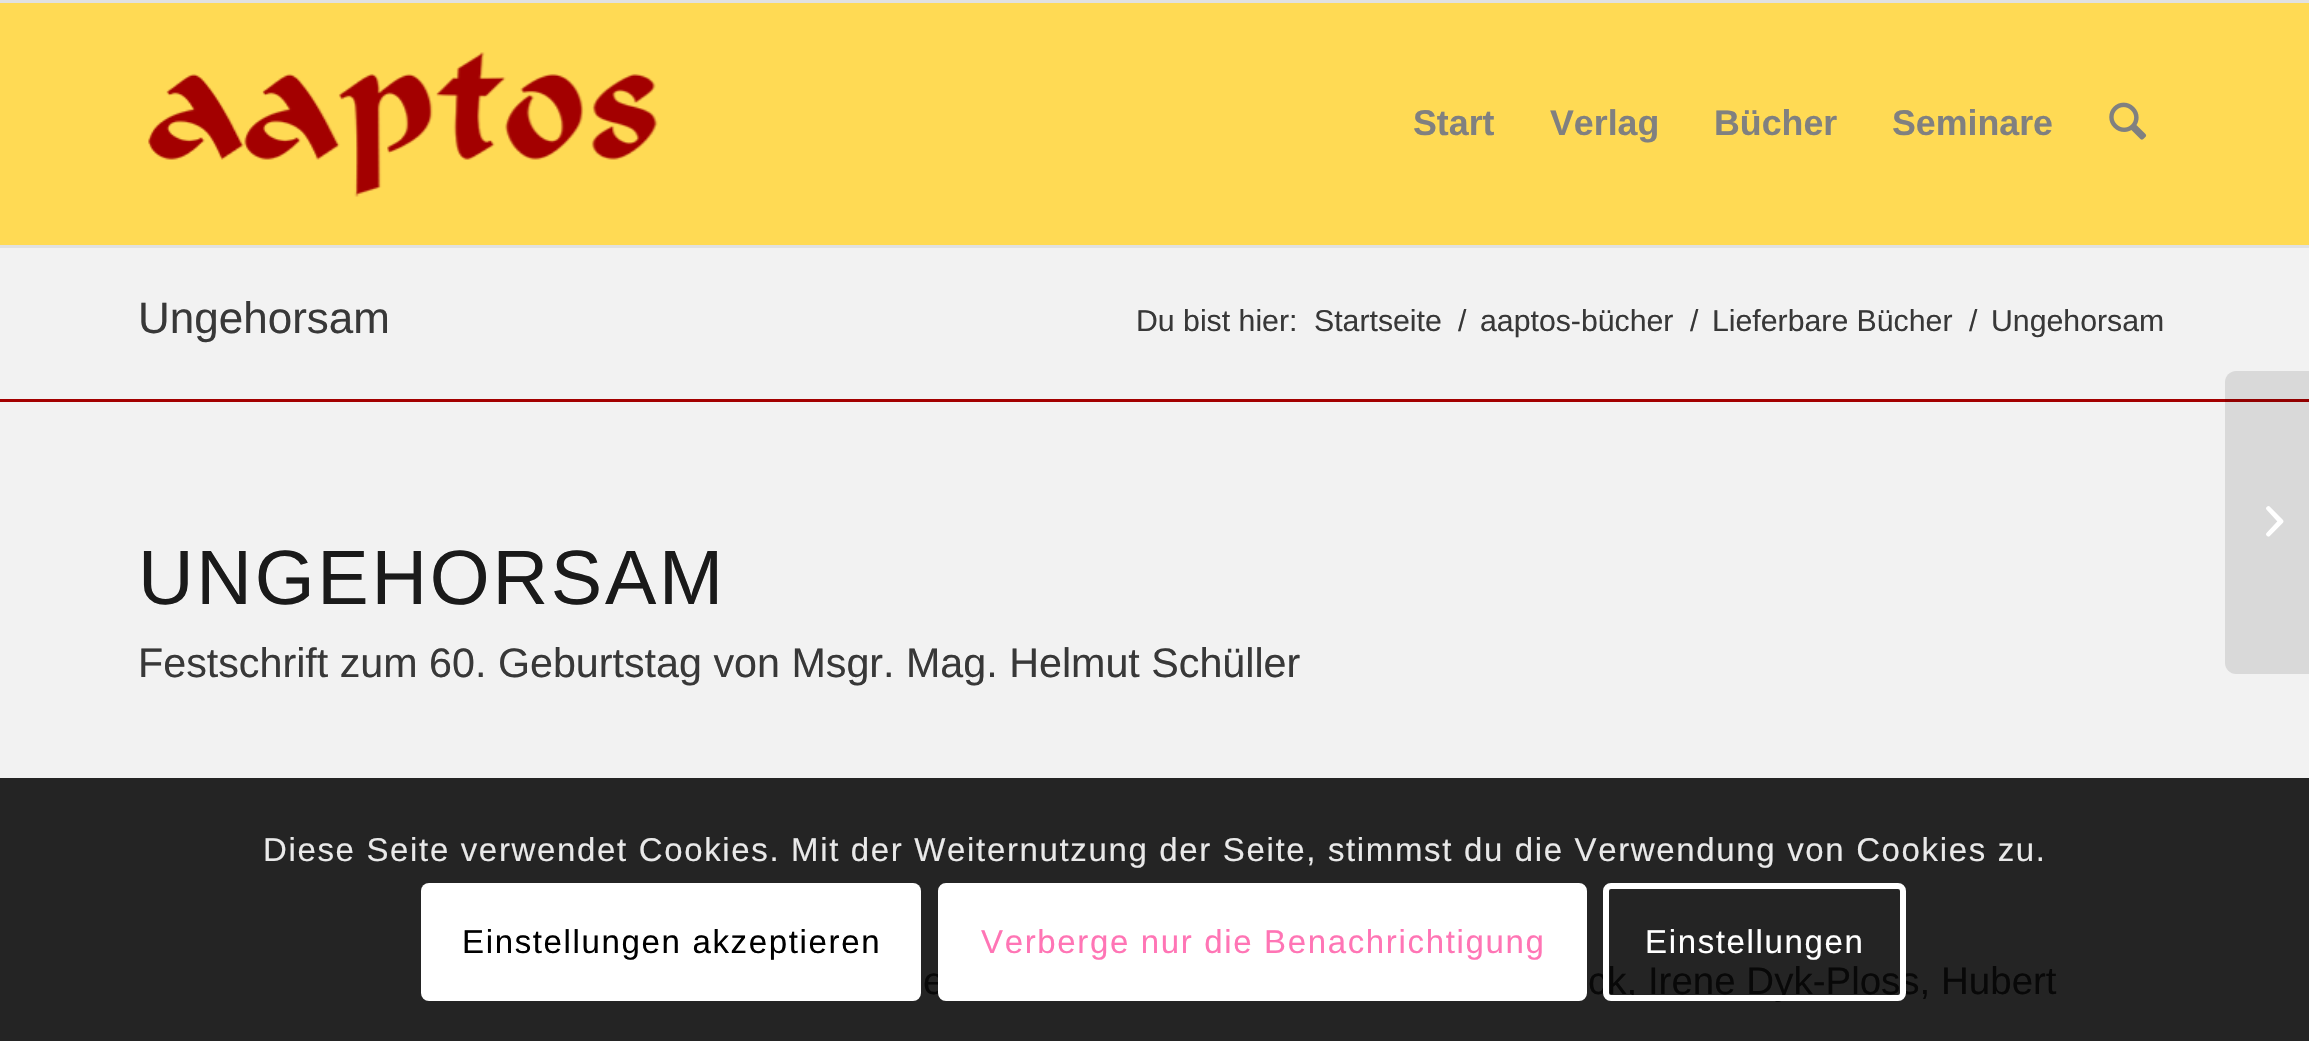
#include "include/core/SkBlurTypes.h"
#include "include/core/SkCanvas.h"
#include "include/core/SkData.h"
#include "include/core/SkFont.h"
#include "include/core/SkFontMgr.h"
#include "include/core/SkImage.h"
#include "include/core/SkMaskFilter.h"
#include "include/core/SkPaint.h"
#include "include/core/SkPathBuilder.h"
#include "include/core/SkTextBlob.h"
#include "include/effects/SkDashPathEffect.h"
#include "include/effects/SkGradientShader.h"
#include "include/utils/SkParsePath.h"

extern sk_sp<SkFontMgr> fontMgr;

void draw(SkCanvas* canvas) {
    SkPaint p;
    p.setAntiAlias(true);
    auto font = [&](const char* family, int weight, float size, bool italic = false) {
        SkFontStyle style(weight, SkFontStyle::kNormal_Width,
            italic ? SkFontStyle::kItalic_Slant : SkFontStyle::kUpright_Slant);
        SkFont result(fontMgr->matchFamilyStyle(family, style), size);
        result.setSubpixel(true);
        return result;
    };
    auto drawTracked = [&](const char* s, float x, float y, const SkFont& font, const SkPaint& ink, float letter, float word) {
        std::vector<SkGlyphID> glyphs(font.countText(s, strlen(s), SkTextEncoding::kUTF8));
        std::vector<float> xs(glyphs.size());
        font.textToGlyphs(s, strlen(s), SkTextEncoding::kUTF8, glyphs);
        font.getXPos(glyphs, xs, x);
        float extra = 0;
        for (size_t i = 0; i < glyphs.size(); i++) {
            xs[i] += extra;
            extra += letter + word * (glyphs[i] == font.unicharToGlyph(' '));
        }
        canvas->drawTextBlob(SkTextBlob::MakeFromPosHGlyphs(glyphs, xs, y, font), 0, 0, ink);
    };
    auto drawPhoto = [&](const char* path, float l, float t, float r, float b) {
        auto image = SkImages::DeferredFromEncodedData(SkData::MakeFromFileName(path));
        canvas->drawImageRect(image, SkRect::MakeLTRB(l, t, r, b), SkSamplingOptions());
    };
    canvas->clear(0xFFF2F2F2);
    {
        const struct { float l, t, r, b; SkColor color; } items[] = {
            {0, 3, 2309, 245, 0xFFFFDA54},
            {0, 0, 2309, 3, 0xFFE1E1E1},
            {0, 245, 2309, 248, 0xFFE1E1E1},
        };
        for (auto [l, t, r, b, color] : items) {
            p.setColor(color);
            canvas->drawRect(SkRect::MakeLTRB(l, t, r, b), p);
        }
    }
    drawPhoto("media/1.png", 148, 52, 658, 197);
    auto font1 = font("Liberation Sans", 700, 35.75f);
    p.setColor(0xFF808080);
    {
        const struct { const char* s; float x, y; } items[] = {
            {"Start", 1413, 135},
            {"Verlag", 1550, 135},
            {"Bücher", 1714, 135},
            {"Seminare", 1892, 135},
        };
        for (auto [s, x, y] : items) {
            canvas->drawString(s, x, y, font1, p);
        }
    }
    drawPhoto("media/2.png", 2109, 102, 2147, 140);
    auto font2 = font("Liberation Sans", 400, 44);
    p.setColor(0xFF383838);
    canvas->drawString("Ungehorsam", 138, 333, font2, p);
    auto font3 = font("Liberation Sans", 400, 30.25f);
    {
        const struct { const char* s; float x, y; } items[] = {
            {"Du bist hier:", 1136, 331},
            {"Startseite", 1314, 331},
            {"/", 1458, 331},
            {"aaptos-bücher", 1480, 331},
            {"/", 1690, 331},
            {"Lieferbare Bücher", 1712, 331},
            {"/", 1969, 331},
            {"Ungehorsam", 1991, 331},
        };
        for (auto [s, x, y] : items) {
            canvas->drawString(s, x, y, font3, p);
        }
    }
    p.setColor(0xFF242424);
    canvas->drawRect(SkRect::MakeLTRB(0, 778, 2309, 1041), p);
    p.setColor(0xFFA30000);
    canvas->drawRect(SkRect::MakeLTRB(0, 399, 2309, 402), p);
    auto font4 = font("Liberation Sans", 400, 77);
    p.setColor(0xFF1A1A1A);
    drawTracked("UNGEHORSAM", 138, 604, font4, p, 2.75f, 0);
    auto font5 = font("Liberation Sans", 400, 41.25f);
    p.setColor(0xFF383838);
    canvas->drawString("Festschrift zum 60. Geburtstag von Msgr. Mag. Helmut Schüller", 138, 677, font5, p);
    auto font6 = font("Liberation Sans", 400, 38.5f);
    p.setColor(0xFF080808);
    canvas->drawString("e", 923, 994, font6, p);
    canvas->drawString("ck, Irene Dyk-Ploss, Hubert", 1588, 994, font6, p);
    p.setColor(0x1A000000);
    canvas->drawPath(SkPathBuilder().moveTo(2236, 371).lineTo(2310, 371).lineTo(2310, 674).lineTo(2236, 674).cubicTo(2230, 674, 2225, 669, 2225, 663).lineTo(2225, 382).cubicTo(2225, 376, 2230, 371, 2236, 371).close().detach(), p);
    drawPhoto("media/3.png", 2266, 506, 2284, 537);
    auto font7 = font("Liberation Sans", 400, 33);
    p.setColor(0xFFE9E9E9);
    drawTracked("Diese Seite verwendet Cookies. Mit der Weiternutzung der Seite, stimmst du die Verwendung von Cookies zu.", 263, 861, font7, p, 1.65f, 0);
    p.setColor(0xFFFFFFFF);
    canvas->drawRoundRect(SkRect::MakeLTRB(421, 883, 921, 1001), 8, 8, p);
    p.setColor(0xFF000000);
    drawTracked("Einstellungen akzeptieren", 462, 953, font7, p, 1.65f, 0);
    p.setColor(0xFFFFFFFF);
    canvas->drawRoundRect(SkRect::MakeLTRB(941, 886, 1584, 998), 5, 5, p);
    p.setStyle(SkPaint::kStroke_Style);
    p.setStrokeWidth(6);
    canvas->drawRoundRect(SkRect::MakeLTRB(941, 886, 1584, 998), 5, 5, p);
    p.setStyle(SkPaint::kFill_Style);
    p.setColor(0xFFFF75B5);
    drawTracked("Verberge nur die Benachrichtigung", 981, 953, font7, p, 1.65f, 0);
    p.setStyle(SkPaint::kStroke_Style);
    p.setColor(0xFFFFFFFF);
    canvas->drawRoundRect(SkRect::MakeLTRB(1606, 886, 1903, 998), 5, 5, p);
    p.setStyle(SkPaint::kFill_Style);
    drawTracked("Einstellungen", 1645, 953, font7, p, 1.65f, 0);
}
